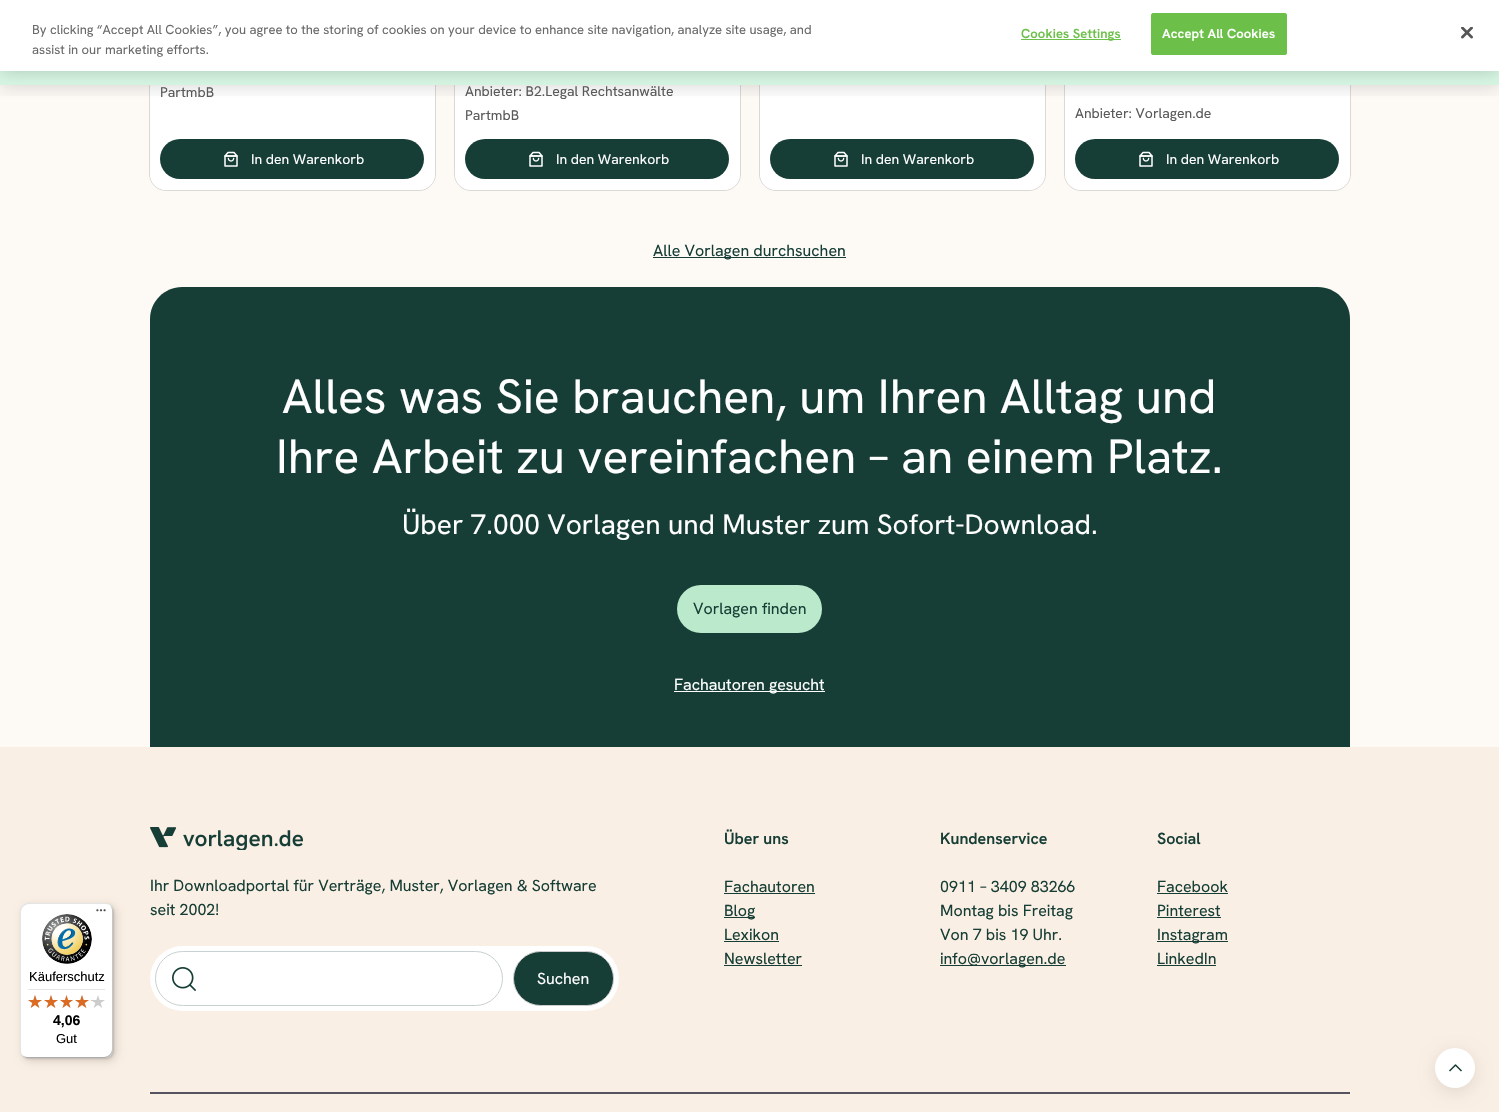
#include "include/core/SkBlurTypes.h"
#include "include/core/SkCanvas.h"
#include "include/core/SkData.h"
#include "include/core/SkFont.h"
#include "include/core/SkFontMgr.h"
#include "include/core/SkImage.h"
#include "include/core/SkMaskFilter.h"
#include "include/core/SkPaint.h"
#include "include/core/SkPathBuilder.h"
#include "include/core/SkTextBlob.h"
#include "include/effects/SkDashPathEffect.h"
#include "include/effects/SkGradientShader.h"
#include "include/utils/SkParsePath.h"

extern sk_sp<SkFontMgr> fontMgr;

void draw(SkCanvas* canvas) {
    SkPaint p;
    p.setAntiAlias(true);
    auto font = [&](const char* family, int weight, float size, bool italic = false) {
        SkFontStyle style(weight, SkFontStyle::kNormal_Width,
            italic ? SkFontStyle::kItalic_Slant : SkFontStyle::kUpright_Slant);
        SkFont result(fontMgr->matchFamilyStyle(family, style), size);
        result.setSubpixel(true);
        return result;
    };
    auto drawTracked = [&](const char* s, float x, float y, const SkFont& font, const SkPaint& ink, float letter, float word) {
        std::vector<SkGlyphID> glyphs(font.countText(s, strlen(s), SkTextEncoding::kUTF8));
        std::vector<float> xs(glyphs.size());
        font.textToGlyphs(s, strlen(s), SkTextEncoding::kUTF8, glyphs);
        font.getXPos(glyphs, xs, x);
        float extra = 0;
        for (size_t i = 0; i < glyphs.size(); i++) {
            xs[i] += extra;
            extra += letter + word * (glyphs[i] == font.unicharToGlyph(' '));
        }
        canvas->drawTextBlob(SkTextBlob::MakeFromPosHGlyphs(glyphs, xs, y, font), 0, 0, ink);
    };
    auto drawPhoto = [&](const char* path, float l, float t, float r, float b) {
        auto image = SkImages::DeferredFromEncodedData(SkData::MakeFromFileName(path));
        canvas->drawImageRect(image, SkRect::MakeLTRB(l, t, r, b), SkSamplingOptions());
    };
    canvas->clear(0xFFFDF9F5);
    p.setStyle(SkPaint::kStroke_Style);
    p.setStrokeWidth(1);
    p.setColor(0xFFDBD8D6);
    canvas->drawRoundRect(SkRect::MakeLTRB(149.5f, -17.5f, 435.5f, 190.5f), 16.5f, 16.5f, p);
    p.setStyle(SkPaint::kFill_Style);
    p.setColor(0xFFFFFFFF);
    canvas->drawRoundRect(SkRect::MakeLTRB(150, -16, 435, 190), 16, 16, p);
    p.setStyle(SkPaint::kStroke_Style);
    p.setColor(0xFFDBD8D6);
    canvas->drawRoundRect(SkRect::MakeLTRB(454.5f, -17.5f, 740.5f, 190.5f), 16.5f, 16.5f, p);
    p.setStyle(SkPaint::kFill_Style);
    p.setColor(0xFFFFFFFF);
    canvas->drawRoundRect(SkRect::MakeLTRB(455, -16, 740, 190), 16, 16, p);
    p.setStyle(SkPaint::kStroke_Style);
    p.setColor(0xFFDBD8D6);
    canvas->drawRoundRect(SkRect::MakeLTRB(759.5f, -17.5f, 1045.5f, 190.5f), 16.5f, 16.5f, p);
    p.setStyle(SkPaint::kFill_Style);
    p.setColor(0xFFFFFFFF);
    canvas->drawRoundRect(SkRect::MakeLTRB(760, -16, 1045, 190), 16, 16, p);
    p.setStyle(SkPaint::kStroke_Style);
    p.setColor(0xFFDBD8D6);
    canvas->drawRoundRect(SkRect::MakeLTRB(1064.5f, -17.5f, 1350.5f, 190.5f), 16.5f, 16.5f, p);
    p.setStyle(SkPaint::kFill_Style);
    p.setColor(0xFFFFFFFF);
    canvas->drawRoundRect(SkRect::MakeLTRB(1065, -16, 1350, 190), 16, 16, p);
    p.setColor(0xFFD7F7E3);
    canvas->drawRect(SkRect::MakeLTRB(0, 71, 1499, 85), p);
    p.setColor(0x33000000);
    p.setMaskFilter(SkMaskFilter::MakeBlur(kNormal_SkBlurStyle, 9));
    canvas->drawRect(SkRect::MakeLTRB(0, 0, 1499, 71), p);
    p.setMaskFilter(nullptr);
    canvas->save();
    canvas->clipRect(SkRect::MakeLTRB(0, 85, 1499, 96));
    p.setColor(0x1A000000);
    p.setMaskFilter(SkMaskFilter::MakeBlur(kNormal_SkBlurStyle, 8));
    canvas->drawRect(SkRect::MakeLTRB(0, 4, 1499, 89), p);
    p.setMaskFilter(nullptr);
    canvas->restore();
    p.setColor(0xFFFFFFFF);
    canvas->drawRect(SkRect::MakeLTRB(0, 0, 1499, 71), p);
    auto font1 = font("Hanken Grotesk", 400, 13);
    p.setColor(0xFF696969);
    canvas->drawString("By clicking “Accept All Cookies”, you agree to the storing of cookies on your device to enhance site navigation, analyze site usage, and", 32, 34, font1, p);
    canvas->drawString("assist in our marketing efforts.", 32, 54, font1, p);
    p.setColor(0xFF6CC04A);
    canvas->drawRect(SkRect::MakeLTRB(1021, 39, 1121, 40), p);
    auto font2 = font("Hanken Grotesk", 600, 13);
    drawTracked("Cookies Settings", 1021, 38, font2, p, 0.1f, 0);
    canvas->drawRoundRect(SkRect::MakeLTRB(1151.5f, 13.5f, 1286.5f, 54.5f), 1.5f, 1.5f, p);
    p.setStyle(SkPaint::kStroke_Style);
    canvas->drawRoundRect(SkRect::MakeLTRB(1151.5f, 13.5f, 1286.5f, 54.5f), 1.5f, 1.5f, p);
    p.setStyle(SkPaint::kFill_Style);
    p.setColor(0xFFFFFFFF);
    drawTracked("Accept All Cookies", 1162, 38, font2, p, 0.1f, 0);
    drawPhoto("media/1.png", 1461, 27, 1473, 39);
    auto font3 = font("Hanken Grotesk", 400, 14);
    p.setColor(0xFF595959);
    canvas->drawString("PartmbB", 160, 97, font3, p);
    p.setColor(0xFF163E36);
    canvas->drawRoundRect(SkRect::MakeLTRB(160, 139, 424, 179), 20, 20, p);
    drawPhoto("media/2.png", 224, 151, 238, 167);
    p.setColor(0xFFFFFFFF);
    canvas->drawString("In den Warenkorb", 251, 164, font3, p);
    p.setColor(0xFF595959);
    canvas->drawString("Anbieter: B2.Legal Rechtsanwälte", 465, 96, font3, p);
    canvas->drawString("PartmbB", 465, 120, font3, p);
    p.setColor(0xFF163E36);
    canvas->drawRoundRect(SkRect::MakeLTRB(465, 139, 729, 179), 20, 20, p);
    drawPhoto("media/2.png", 529, 151, 543, 167);
    p.setColor(0xFFFFFFFF);
    canvas->drawString("In den Warenkorb", 556, 164, font3, p);
    p.setColor(0xFF163E36);
    canvas->drawRoundRect(SkRect::MakeLTRB(770, 139, 1034, 179), 20, 20, p);
    drawPhoto("media/2.png", 834, 151, 848, 167);
    p.setColor(0xFFFFFFFF);
    canvas->drawString("In den Warenkorb", 861, 164, font3, p);
    p.setColor(0xFF595959);
    canvas->drawString("Anbieter: Vorlagen.de", 1075, 118, font3, p);
    p.setColor(0xFF163E36);
    canvas->drawRoundRect(SkRect::MakeLTRB(1075, 139, 1339, 179), 20, 20, p);
    drawPhoto("media/2.png", 1139, 151, 1153, 167);
    p.setColor(0xFFFFFFFF);
    canvas->drawString("In den Warenkorb", 1166, 164, font3, p);
    p.setColor(0xFF163E36);
    canvas->drawRect(SkRect::MakeLTRB(653, 257, 846, 258), p);
    auto font4 = font("Hanken Grotesk", 400, 16);
    canvas->drawString("Alle Vorlagen durchsuchen", 653, 256, font4, p);
    canvas->drawPath(SkPathBuilder().moveTo(182, 287).lineTo(1318, 287).cubicTo(1335.5f, 287, 1350, 301.5f, 1350, 319).lineTo(1350, 747).lineTo(150, 747).lineTo(150, 319).cubicTo(150, 301.5f, 164.5f, 287, 182, 287).close().detach(), p);
    auto font5 = font("Hanken Grotesk", 400, 48);
    p.setColor(0xFFFFFFFF);
    canvas->drawString("Alles was Sie brauchen, um Ihren Alltag und", 282, 413, font5, p);
    canvas->drawString("Ihre Arbeit zu vereinfachen – an einem Platz.", 276, 473, font5, p);
    auto font6 = font("Hanken Grotesk", 400, 28);
    canvas->drawString("Über 7.000 Vorlagen und Muster zum Sofort-Download.", 402, 534, font6, p);
    p.setColor(0xFFBBE9CC);
    canvas->drawRoundRect(SkRect::MakeLTRB(677, 585, 822, 633), 24, 24, p);
    p.setColor(0xFF163E36);
    canvas->drawString("Vorlagen finden", 693, 614, font4, p);
    p.setColor(0xFFFFFFFF);
    canvas->drawRect(SkRect::MakeLTRB(674, 691, 825, 692), p);
    canvas->drawString("Fachautoren gesucht", 674, 690, font4, p);
    p.setColor(0xFFFAEFE4);
    canvas->drawRect(SkRect::MakeLTRB(0, 747, 1499, 1112), p);
    drawPhoto("media/3.png", 150, 827, 303, 850);
    p.setColor(0xFF163E36);
    canvas->drawString("Ihr Downloadportal für Verträge, Muster, Vorlagen & Software", 150, 891, font4, p);
    canvas->drawString("seit 2002!", 150, 915, font4, p);
    p.setColor(0xFFFFFFFF);
    canvas->drawRoundRect(SkRect::MakeLTRB(150, 946, 619, 1011), 32.5f, 32.5f, p);
    drawPhoto("media/4.png", 172, 967, 196, 991);
    p.setStyle(SkPaint::kStroke_Style);
    p.setColor(0xFFC7D1CF);
    canvas->drawRoundRect(SkRect::MakeLTRB(155.5f, 951.5f, 502.5f, 1005.5f), 27, 27, p);
    p.setStyle(SkPaint::kFill_Style);
    p.setColor(0xFF163E36);
    canvas->drawRoundRect(SkRect::MakeLTRB(513.5f, 951.5f, 613.5f, 1005.5f), 27, 27, p);
    p.setStyle(SkPaint::kStroke_Style);
    p.setColor(0xFFCCCCCC);
    canvas->drawRoundRect(SkRect::MakeLTRB(513.5f, 951.5f, 613.5f, 1005.5f), 27, 27, p);
    p.setStyle(SkPaint::kFill_Style);
    p.setColor(0xFFFFFFFF);
    canvas->drawString("Suchen", 537, 984, font4, p);
    auto font7 = font("Hanken Grotesk", 600, 16);
    p.setColor(0xFF163E36);
    canvas->drawString("Über uns", 724, 844, font7, p);
    canvas->drawString("Fachautoren", 724, 892, font4, p);
    canvas->drawRect(SkRect::MakeLTRB(724, 893, 815, 894), p);
    canvas->drawRect(SkRect::MakeLTRB(724, 917, 755, 918), p);
    canvas->drawString("Blog", 724, 916, font4, p);
    canvas->drawString("Lexikon", 724, 940, font4, p);
    canvas->drawRect(SkRect::MakeLTRB(724, 941, 779, 942), p);
    canvas->drawString("Newsletter", 724, 964, font4, p);
    canvas->drawRect(SkRect::MakeLTRB(724, 965, 802, 966), p);
    canvas->drawString("Kundenservice", 940, 844, font7, p);
    {
        const struct { const char* s; float x, y; } items[] = {
            {"0911 – 3409 83266", 940, 892},
            {"Montag bis Freitag", 940, 916},
            {"Von 7 bis 19 Uhr.", 940, 940},
        };
        for (auto [s, x, y] : items) {
            canvas->drawString(s, x, y, font4, p);
        }
    }
    canvas->drawRect(SkRect::MakeLTRB(940, 965, 1066, 966), p);
    canvas->drawString("info@vorlagen.de", 940, 964, font4, p);
    canvas->drawString("Social", 1157, 844, font7, p);
    canvas->drawString("Facebook", 1157, 892, font4, p);
    canvas->drawRect(SkRect::MakeLTRB(1157, 893, 1228, 894), p);
    canvas->drawString("Pinterest", 1157, 916, font4, p);
    canvas->drawRect(SkRect::MakeLTRB(1157, 917, 1221, 918), p);
    canvas->drawRect(SkRect::MakeLTRB(1157, 941, 1228, 942), p);
    canvas->drawString("Instagram", 1157, 940, font4, p);
    canvas->drawString("LinkedIn", 1157, 964, font4, p);
    canvas->drawRect(SkRect::MakeLTRB(1157, 965, 1216, 966), p);
    p.setColor(0xFF54535F);
    canvas->drawRect(SkRect::MakeLTRB(150, 1092, 1350, 1094), p);
    p.setColor(0x1A000000);
    p.setMaskFilter(SkMaskFilter::MakeBlur(kNormal_SkBlurStyle, 8));
    canvas->drawRoundRect(SkRect::MakeLTRB(1435, 1052, 1475, 1092), 20, 20, p);
    p.setMaskFilter(nullptr);
    p.setColor(0xFFFFFFFF);
    canvas->drawCircle(1455, 1068, 20, p);
    p.setStyle(SkPaint::kStroke_Style);
    p.setStrokeWidth(1.5f);
    p.setStrokeJoin(SkPaint::kRound_Join);
    p.setColor(0xFF163E36);
    canvas->drawPath(SkPathBuilder().moveTo(1461.5f, 1071).lineTo(1455.5f, 1065).lineTo(1449.5f, 1071).detach(), p);
    p.setStyle(SkPaint::kFill_Style);
    p.setColor(0x26000000);
    p.setMaskFilter(SkMaskFilter::MakeBlur(kNormal_SkBlurStyle, 4));
    canvas->drawRoundRect(SkRect::MakeLTRB(23, 906, 116, 1061), 8, 8, p);
    p.setMaskFilter(nullptr);
    p.setMaskFilter(SkMaskFilter::MakeBlur(kNormal_SkBlurStyle, 1));
    canvas->drawRoundRect(SkRect::MakeLTRB(21, 904, 114, 1059), 8, 8, p);
    p.setMaskFilter(nullptr);
    p.setColor(0xFFFFFFFF);
    canvas->drawRoundRect(SkRect::MakeLTRB(20, 903, 113, 1058), 8, 8, p);
    p.setColor(0x1A000000);
    canvas->drawPath(SkPathBuilder().moveTo(29, 904).lineTo(106, 904).cubicTo(108, 904, 110, 905, 112, 907).cubicTo(110, 905, 108, 903, 105, 903).lineTo(28, 903).cubicTo(24, 903, 20, 907, 20, 911).lineTo(20, 1050).cubicTo(20, 1053, 22, 1055, 24, 1057).cubicTo(22, 1055, 21, 1053, 21, 1051).lineTo(21, 912).cubicTo(21, 908, 25, 904, 29, 904).close().detach(), p);
    p.setColor(0x33000000);
    canvas->drawPath(SkPathBuilder().moveTo(21, 1054).cubicTo(23, 1056, 25, 1058, 28, 1058).lineTo(105, 1058).cubicTo(109, 1058, 113, 1054, 113, 1050).lineTo(113, 911).cubicTo(113, 908, 111, 906, 109, 904).cubicTo(111, 906, 112, 908, 112, 910).lineTo(112, 1049).cubicTo(112, 1053, 108, 1057, 104, 1057).lineTo(27, 1057).cubicTo(25, 1057, 23, 1056, 21, 1054).close().detach(), p);
    p.setColor(0x33323232);
    canvas->drawPath(SkPathBuilder().moveTo(22, 1055).cubicTo(23, 1057, 26, 1058, 28, 1058).lineTo(105, 1058).cubicTo(109, 1058, 113, 1054, 113, 1050).lineTo(113, 911).cubicTo(113, 909, 112, 906, 110, 905).cubicTo(111, 906, 112, 908, 112, 910).lineTo(112, 1049).cubicTo(112, 1054, 109, 1057, 104, 1057).lineTo(27, 1057).cubicTo(25, 1057, 23, 1056, 22, 1055).close().detach(), p);
    p.setColor(0x4DFFFFFF);
    canvas->drawPath(SkPathBuilder().moveTo(104, 1058).lineTo(105, 1058).cubicTo(109, 1058, 113, 1054, 113, 1050).lineTo(113, 911).cubicTo(113, 909, 112, 906, 110, 905).cubicTo(111, 906, 112, 908, 112, 910).lineTo(112, 1050).cubicTo(112, 1054, 109, 1058, 104, 1058).close().detach(), p);
    drawPhoto("media/5.png", 96, 909, 106, 912);
    drawPhoto("media/6.png", 42, 914, 92, 964);
    auto font8 = font("Liberation Sans", 400, 13);
    p.setColor(0xFF000000);
    canvas->drawString("Käuferschutz", 29, 981, font8, p);
    p.setColor(0xFFE5E5E5);
    canvas->drawRect(SkRect::MakeLTRB(28, 989, 105, 990), p);
    drawPhoto("media/7.png", 28, 995, 42, 1008);
    drawPhoto("media/7.png", 44, 995, 58, 1008);
    drawPhoto("media/8.png", 60, 995, 73, 1008);
    drawPhoto("media/7.png", 75, 995, 89, 1008);
    drawPhoto("media/9.png", 92, 995, 105, 1008);
    drawPhoto("media/10.png", 28, 995, 42, 1008);
    drawPhoto("media/10.png", 44, 995, 58, 1008);
    drawPhoto("media/11.png", 60, 995, 73, 1008);
    drawPhoto("media/10.png", 75, 995, 89, 1008);
    p.setColor(0xFFE7BDA1);
    canvas->drawRect(SkRect::MakeLTRB(91, 1000, 92, 1001), p);
    auto font9 = font("Liberation Sans", 700, 14);
    p.setColor(0xFF000000);
    canvas->drawString("4,06", 53, 1025, font9, p);
    canvas->drawString("Gut", 56, 1043, font8, p);
}
